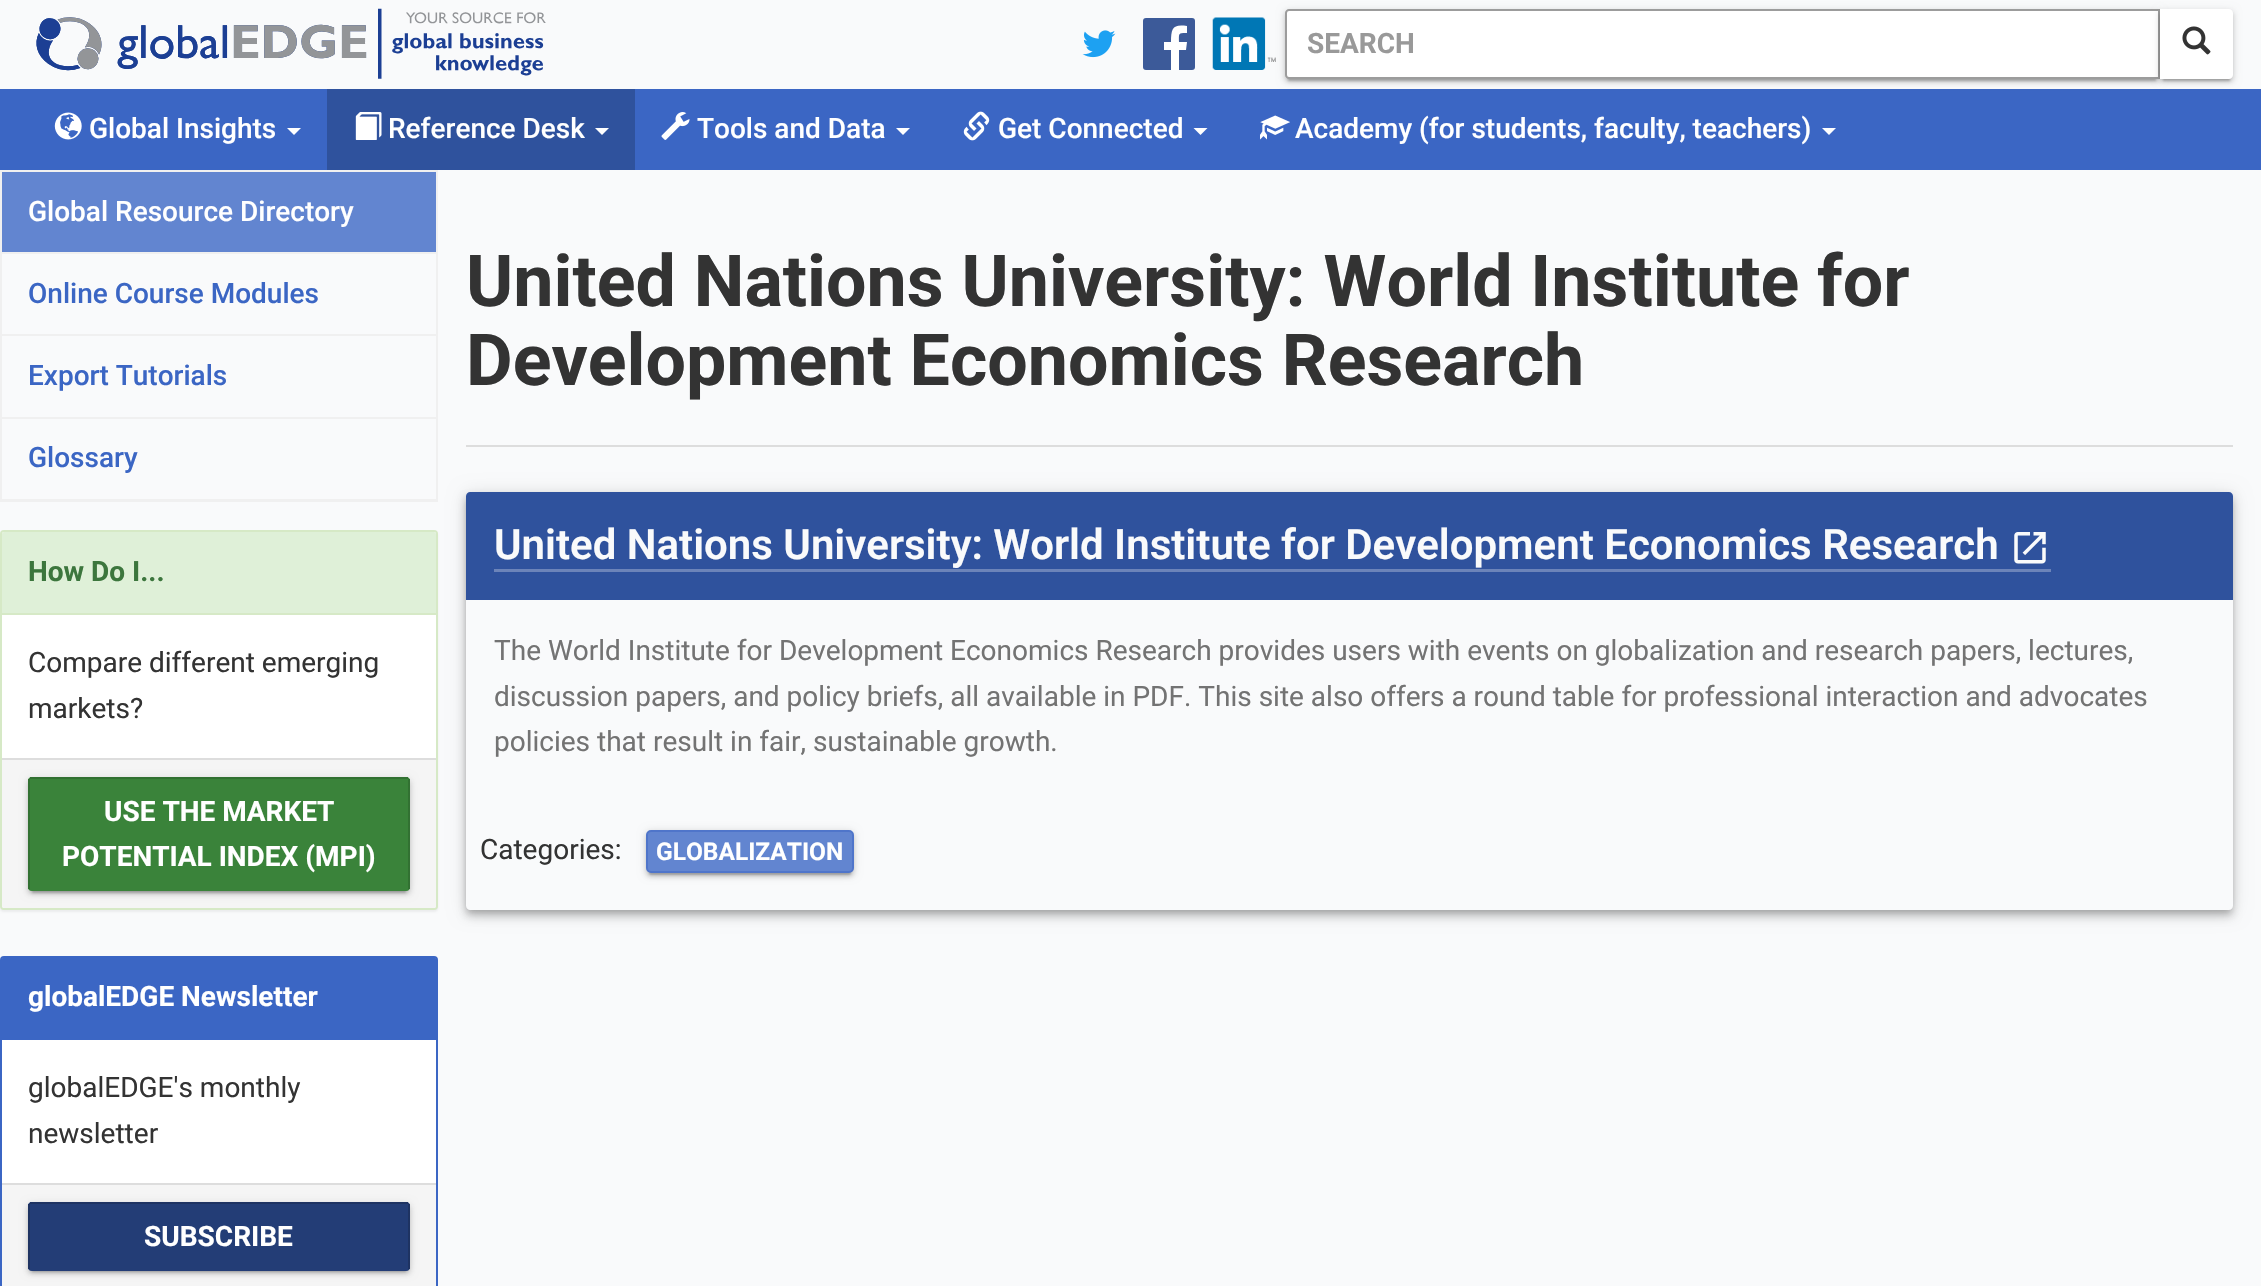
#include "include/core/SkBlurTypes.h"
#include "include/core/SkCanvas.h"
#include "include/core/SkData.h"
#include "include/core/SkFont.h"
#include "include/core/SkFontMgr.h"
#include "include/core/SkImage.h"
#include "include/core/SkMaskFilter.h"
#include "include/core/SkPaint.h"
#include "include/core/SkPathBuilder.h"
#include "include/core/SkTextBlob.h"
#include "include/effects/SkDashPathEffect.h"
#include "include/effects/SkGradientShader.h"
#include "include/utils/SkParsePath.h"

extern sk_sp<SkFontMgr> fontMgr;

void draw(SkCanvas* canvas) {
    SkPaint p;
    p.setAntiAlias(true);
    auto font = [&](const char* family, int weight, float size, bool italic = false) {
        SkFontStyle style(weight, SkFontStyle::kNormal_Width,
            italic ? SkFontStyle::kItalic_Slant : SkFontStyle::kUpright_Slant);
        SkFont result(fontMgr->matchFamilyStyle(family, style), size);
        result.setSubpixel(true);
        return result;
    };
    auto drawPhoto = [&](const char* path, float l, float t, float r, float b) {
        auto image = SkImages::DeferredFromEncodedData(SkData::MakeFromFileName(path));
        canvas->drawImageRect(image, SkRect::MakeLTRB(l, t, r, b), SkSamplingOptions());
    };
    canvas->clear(0xFFF9FAFB);
    drawPhoto("media/1.png", 36, 8, 546, 79);
    drawPhoto("media/2.png", 1082, 30, 1116, 58);
    p.setColor(0xFF3C5A99);
    canvas->drawRoundRect(SkRect::MakeLTRB(1143, 18, 1195, 70), 3, 3, p);
    p.setColor(0xFFFFFFFF);
    canvas->drawPath(SkPathBuilder().moveTo(1179, 70).lineTo(1179, 50).lineTo(1186, 50).lineTo(1187, 42).lineTo(1179, 42).cubicTo(1179, 33, 1178, 33, 1187, 33).lineTo(1187, 26).cubicTo(1173, 24, 1171, 28, 1171, 42).lineTo(1164, 42).lineTo(1164, 50).lineTo(1171, 50).lineTo(1171, 70).close().detach(), p);
    drawPhoto("media/3.png", 1212, 17, 1276, 70);
    p.setColor(0xFF3B66C4);
    canvas->drawRect(SkRect::MakeLTRB(0, 89, 2261, 170), p);
    p.setColor(0x1F000000);
    p.setMaskFilter(SkMaskFilter::MakeBlur(kNormal_SkBlurStyle, 4.5f));
    canvas->drawRoundRect(SkRect::MakeLTRB(1285, 11, 2160, 81), 4, 4, p);
    p.setMaskFilter(nullptr);
    p.setColor(0x33000000);
    p.setMaskFilter(SkMaskFilter::MakeBlur(kNormal_SkBlurStyle, 1));
    canvas->drawRect(SkRect::MakeLTRB(1288, 18, 2156, 81), p);
    p.setMaskFilter(nullptr);
    p.setColor(0x24000000);
    p.setMaskFilter(SkMaskFilter::MakeBlur(kNormal_SkBlurStyle, 2));
    canvas->drawRoundRect(SkRect::MakeLTRB(1285, 12, 2160, 82), 4, 4, p);
    p.setMaskFilter(nullptr);
    p.setColor(0xFFFFFFFF);
    canvas->drawPath(SkPathBuilder().moveTo(1289, 10).lineTo(2159, 10).lineTo(2159, 78).lineTo(1289, 78).cubicTo(1287.5f, 78, 1286, 76.5f, 1286, 75).lineTo(1286, 13).cubicTo(1286, 11.5f, 1287.5f, 10, 1289, 10).close().detach(), p);
    p.setStyle(SkPaint::kStroke_Style);
    p.setStrokeWidth(2);
    p.setColor(0xFF9C9C9C);
    canvas->drawPath(SkPathBuilder().moveTo(1289, 10).lineTo(2159, 10).lineTo(2159, 78).lineTo(1289, 78).cubicTo(1287.5f, 78, 1286, 76.5f, 1286, 75).lineTo(1286, 13).cubicTo(1286, 11.5f, 1287.5f, 10, 1289, 10).close().detach(), p);
    auto font1 = font("Roboto", 700, 28);
    p.setStyle(SkPaint::kFill_Style);
    p.setColor(0xFF999999);
    canvas->drawString("SEARCH", 1307, 53, font1, p);
    p.setColor(0x1F000000);
    p.setMaskFilter(SkMaskFilter::MakeBlur(kNormal_SkBlurStyle, 4.5f));
    canvas->drawRoundRect(SkRect::MakeLTRB(2160, 11, 2233, 81), 4, 4, p);
    p.setMaskFilter(nullptr);
    p.setColor(0x33000000);
    p.setMaskFilter(SkMaskFilter::MakeBlur(kNormal_SkBlurStyle, 1));
    canvas->drawRect(SkRect::MakeLTRB(2163, 18, 2230, 81), p);
    p.setMaskFilter(nullptr);
    p.setColor(0x24000000);
    p.setMaskFilter(SkMaskFilter::MakeBlur(kNormal_SkBlurStyle, 2));
    canvas->drawRoundRect(SkRect::MakeLTRB(2160, 12, 2233, 82), 4, 4, p);
    p.setMaskFilter(nullptr);
    p.setColor(0xFFFFFFFF);
    canvas->drawPath(SkPathBuilder().moveTo(2160, 9).lineTo(2229, 9).cubicTo(2231, 9, 2233, 11, 2233, 13).lineTo(2233, 75).cubicTo(2233, 77, 2231, 79, 2229, 79).lineTo(2160, 79).close().detach(), p);
    drawPhoto("media/4.png", 2182, 26, 2211, 55);
    drawPhoto("media/5.png", 54, 112, 82, 140);
    auto font2 = font("Roboto", 500, 28);
    canvas->drawString("Global Insights", 89, 138, font2, p);
    canvas->drawPath(SkPathBuilder().moveTo(287, 128).lineTo(301, 128).lineTo(294, 135).close().detach(), p);
    p.setColor(0xFF2F529D);
    canvas->drawRect(SkRect::MakeLTRB(327, 89, 635, 170), p);
    drawPhoto("media/6.png", 355, 112, 382, 140);
    p.setColor(0xFFFFFFFF);
    canvas->drawString("Reference Desk", 388, 138, font2, p);
    canvas->drawPath(SkPathBuilder().moveTo(595, 128).lineTo(609, 128).lineTo(602, 135).close().detach(), p);
    drawPhoto("media/7.png", 661, 112, 690, 140);
    canvas->drawString("Tools and Data", 697, 138, font2, p);
    canvas->drawPath(SkPathBuilder().moveTo(896, 128).lineTo(910, 128).lineTo(903, 135).close().detach(), p);
    drawPhoto("media/8.png", 963, 111, 990, 141);
    canvas->drawString("Get Connected", 998, 138, font2, p);
    canvas->drawPath(SkPathBuilder().moveTo(1193.5f, 128).lineTo(1207.5f, 128).lineTo(1200.5f, 135).close().detach(), p);
    drawPhoto("media/9.png", 1260, 115, 1290, 140);
    canvas->drawString("Academy (for students, faculty, teachers)", 1295, 138, font2, p);
    canvas->drawPath(SkPathBuilder().moveTo(1822, 128).lineTo(1836, 128).lineTo(1829, 135).close().detach(), p);
    p.setStyle(SkPaint::kStroke_Style);
    p.setColor(0xFFF0F0F0);
    canvas->drawRect(SkRect::MakeLTRB(1, 171, 437, 501), p);
    p.setStyle(SkPaint::kFill_Style);
    p.setColor(0xFF6285D0);
    canvas->drawRect(SkRect::MakeLTRB(2, 172, 436, 252), p);
    p.setColor(0xFFF0F0F0);
    canvas->drawRect(SkRect::MakeLTRB(2, 252, 436, 254), p);
    p.setColor(0xFFFFFFFF);
    canvas->drawString("Global Resource Directory", 28, 221, font2, p);
    p.setColor(0xFFF0F0F0);
    canvas->drawRect(SkRect::MakeLTRB(2, 334, 436, 336), p);
    p.setColor(0xFF3B66C4);
    canvas->drawString("Online Course Modules", 28, 303, font2, p);
    p.setColor(0xFFF0F0F0);
    canvas->drawRect(SkRect::MakeLTRB(2, 417, 436, 419), p);
    p.setColor(0xFF3B66C4);
    canvas->drawString("Export Tutorials", 28, 385, font2, p);
    p.setColor(0xFFF0F0F0);
    canvas->drawRect(SkRect::MakeLTRB(2, 499, 436, 500), p);
    p.setColor(0xFF3B66C4);
    canvas->drawString("Glossary", 28, 467, font2, p);
    p.setColor(0x0D000000);
    p.setMaskFilter(SkMaskFilter::MakeBlur(kNormal_SkBlurStyle, 1));
    canvas->drawRoundRect(SkRect::MakeLTRB(0, 532, 438, 912), 4, 4, p);
    p.setMaskFilter(nullptr);
    p.setColor(0xFFFFFFFF);
    canvas->drawRoundRect(SkRect::MakeLTRB(1, 531, 437, 909), 3, 3, p);
    p.setStyle(SkPaint::kStroke_Style);
    p.setColor(0xFFD6E9C6);
    canvas->drawRoundRect(SkRect::MakeLTRB(1, 531, 437, 909), 3, 3, p);
    p.setStyle(SkPaint::kFill_Style);
    p.setColor(0xFFDFF0D8);
    canvas->drawPath(SkPathBuilder().moveTo(4, 532).lineTo(434, 532).cubicTo(435, 532, 436, 533, 436, 534).lineTo(436, 614).lineTo(2, 614).lineTo(2, 534).cubicTo(2, 533, 3, 532, 4, 532).close().detach(), p);
    p.setColor(0xFFD6E9C6);
    canvas->drawRect(SkRect::MakeLTRB(2, 613, 436, 615), p);
    p.setColor(0xFF3C763D);
    canvas->drawString("How Do I...", 28, 581, font1, p);
    auto font3 = font("Roboto", 400, 28);
    p.setColor(0xFF333333);
    canvas->drawString("Compare different emerging", 28, 672, font3, p);
    canvas->drawString("markets?", 28, 718, font3, p);
    p.setColor(0xFFF5F5F5);
    canvas->drawPath(SkPathBuilder().moveTo(2, 758).lineTo(436, 758).lineTo(436, 906).cubicTo(436, 907, 435, 908, 434, 908).lineTo(4, 908).cubicTo(3, 908, 2, 907, 2, 906).close().detach(), p);
    p.setColor(0xFFDDDDDD);
    canvas->drawRect(SkRect::MakeLTRB(2, 758, 436, 760), p);
    p.setColor(0x1F000000);
    p.setMaskFilter(SkMaskFilter::MakeBlur(kNormal_SkBlurStyle, 4.5f));
    canvas->drawRoundRect(SkRect::MakeLTRB(28, 779, 410, 893), 4, 4, p);
    p.setMaskFilter(nullptr);
    p.setColor(0x33000000);
    p.setMaskFilter(SkMaskFilter::MakeBlur(kNormal_SkBlurStyle, 1));
    canvas->drawRect(SkRect::MakeLTRB(32, 786, 406, 893), p);
    p.setMaskFilter(nullptr);
    p.setColor(0x24000000);
    p.setMaskFilter(SkMaskFilter::MakeBlur(kNormal_SkBlurStyle, 2));
    canvas->drawRoundRect(SkRect::MakeLTRB(28, 781, 410, 894), 4, 4, p);
    p.setMaskFilter(nullptr);
    p.setColor(0xFF3A833A);
    canvas->drawRoundRect(SkRect::MakeLTRB(28, 777, 410, 891), 4, 4, p);
    {
        const struct { float l, t, r, b; SkColor color; } items[] = {
            {30, 777, 408, 779, 0xFF327132},
            {408, 779, 410, 889, 0xFF327132},
            {28, 779, 30, 889, 0xFF327132},
        };
        for (auto [l, t, r, b, color] : items) {
            p.setColor(color);
            canvas->drawRect(SkRect::MakeLTRB(l, t, r, b), p);
        }
    }
    p.setColor(0xFFFFFFFF);
    canvas->drawString("USE THE MARKET", 104, 821, font1, p);
    canvas->drawString("POTENTIAL INDEX (MPI)", 62, 866, font1, p);
    canvas->drawRoundRect(SkRect::MakeLTRB(1, 957, 437, 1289), 3, 3, p);
    p.setStyle(SkPaint::kStroke_Style);
    p.setColor(0xFF3B66C4);
    canvas->drawRoundRect(SkRect::MakeLTRB(1, 957, 437, 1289), 3, 3, p);
    p.setStyle(SkPaint::kFill_Style);
    canvas->drawPath(SkPathBuilder().moveTo(4, 957).lineTo(434, 957).cubicTo(435, 957, 436, 958, 436, 959).lineTo(436, 1040).lineTo(2, 1040).lineTo(2, 959).cubicTo(2, 958, 3, 957, 4, 957).close().detach(), p);
    p.setColor(0xFFFFFFFF);
    canvas->drawString("globalEDGE Newsletter", 28, 1006, font1, p);
    p.setColor(0xFF333333);
    canvas->drawString("globalEDGE's monthly", 28, 1097, font3, p);
    canvas->drawString("newsletter", 28, 1143, font3, p);
    p.setColor(0xFFF5F5F5);
    canvas->drawRect(SkRect::MakeLTRB(2, 1185, 436, 1286), p);
    p.setColor(0xFFDDDDDD);
    canvas->drawRect(SkRect::MakeLTRB(2, 1183, 436, 1185), p);
    p.setColor(0x1F000000);
    p.setMaskFilter(SkMaskFilter::MakeBlur(kNormal_SkBlurStyle, 4.5f));
    canvas->drawRoundRect(SkRect::MakeLTRB(28, 1204, 410, 1272), 4, 4, p);
    p.setMaskFilter(nullptr);
    p.setColor(0x33000000);
    p.setMaskFilter(SkMaskFilter::MakeBlur(kNormal_SkBlurStyle, 1));
    canvas->drawRect(SkRect::MakeLTRB(32, 1211, 406, 1272), p);
    p.setMaskFilter(nullptr);
    p.setColor(0x24000000);
    p.setMaskFilter(SkMaskFilter::MakeBlur(kNormal_SkBlurStyle, 2));
    canvas->drawRoundRect(SkRect::MakeLTRB(28, 1206, 410, 1274), 4, 4, p);
    p.setMaskFilter(nullptr);
    p.setColor(0xFF233D76);
    canvas->drawRoundRect(SkRect::MakeLTRB(28, 1202, 410, 1271), 4, 4, p);
    {
        const struct { float l, t, r, b; SkColor color; } items[] = {
            {30, 1202, 408, 1204, 0xFF1E3362},
            {408, 1204, 410, 1269, 0xFF1E3362},
            {28, 1204, 30, 1269, 0xFF1E3362},
        };
        for (auto [l, t, r, b, color] : items) {
            p.setColor(color);
            canvas->drawRect(SkRect::MakeLTRB(l, t, r, b), p);
        }
    }
    p.setColor(0xFFFFFFFF);
    canvas->drawString("SUBSCRIBE", 144, 1246, font1, p);
    p.setColor(0xFFDDDDDD);
    canvas->drawRect(SkRect::MakeLTRB(466, 445, 2233, 447), p);
    auto font4 = font("Roboto", 700, 71.75f);
    p.setColor(0xFF333333);
    canvas->drawString("United Nations University: World Institute for", 466, 306, font4, p);
    canvas->drawString("Development Economics Research", 466, 385, font4, p);
    canvas->save();
    canvas->clipPath(SkPathBuilder(SkPathFillType::kEvenOdd).moveTo(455, 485).lineTo(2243, 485).lineTo(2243, 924).lineTo(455, 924).close().moveTo(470, 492).lineTo(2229, 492).cubicTo(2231, 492, 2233, 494, 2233, 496).lineTo(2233, 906).cubicTo(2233, 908, 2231, 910, 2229, 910).lineTo(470, 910).cubicTo(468, 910, 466, 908, 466, 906).lineTo(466, 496).cubicTo(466, 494, 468, 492, 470, 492).close().detach(), true);
    p.setColor(0x33000000);
    p.setMaskFilter(SkMaskFilter::MakeBlur(kNormal_SkBlurStyle, 3.5f));
    canvas->drawRoundRect(SkRect::MakeLTRB(467, 497, 2231, 912), 2, 2, p);
    p.setMaskFilter(nullptr);
    canvas->restore();
    canvas->save();
    canvas->clipPath(SkPathBuilder(SkPathFillType::kEvenOdd).moveTo(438, 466).lineTo(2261, 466).lineTo(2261, 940).lineTo(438, 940).close().moveTo(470, 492).lineTo(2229, 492).cubicTo(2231, 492, 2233, 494, 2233, 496).lineTo(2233, 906).cubicTo(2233, 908, 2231, 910, 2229, 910).lineTo(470, 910).cubicTo(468, 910, 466, 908, 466, 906).lineTo(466, 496).cubicTo(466, 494, 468, 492, 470, 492).close().detach(), true);
    p.setColor(0x1F000000);
    p.setMaskFilter(SkMaskFilter::MakeBlur(kNormal_SkBlurStyle, 9));
    canvas->drawRoundRect(SkRect::MakeLTRB(466, 494, 2233, 912), 4, 4, p);
    p.setMaskFilter(nullptr);
    canvas->restore();
    canvas->save();
    canvas->clipPath(SkPathBuilder(SkPathFillType::kEvenOdd).moveTo(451, 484).lineTo(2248, 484).lineTo(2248, 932).lineTo(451, 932).close().moveTo(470, 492).lineTo(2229, 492).cubicTo(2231, 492, 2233, 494, 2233, 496).lineTo(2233, 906).cubicTo(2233, 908, 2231, 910, 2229, 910).lineTo(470, 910).cubicTo(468, 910, 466, 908, 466, 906).lineTo(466, 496).cubicTo(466, 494, 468, 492, 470, 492).close().detach(), true);
    p.setColor(0x24000000);
    p.setMaskFilter(SkMaskFilter::MakeBlur(kNormal_SkBlurStyle, 4.5f));
    canvas->drawRoundRect(SkRect::MakeLTRB(466, 499, 2233, 917), 4, 4, p);
    p.setMaskFilter(nullptr);
    canvas->restore();
    p.setColor(0xFF2F529D);
    canvas->drawPath(SkPathBuilder().moveTo(470, 492).lineTo(2229, 492).cubicTo(2231, 492, 2233, 494, 2233, 496).lineTo(2233, 600).lineTo(466, 600).lineTo(466, 496).cubicTo(466, 494, 468, 492, 470, 492).close().detach(), p);
    p.setColor(0xFF6C84B9);
    canvas->drawRect(SkRect::MakeLTRB(494, 569, 2051, 572), p);
    auto font5 = font("Roboto", 600, 42);
    p.setColor(0xFFF9FAFB);
    canvas->drawString("United Nations University: World Institute for Development Economics Research", 494, 559, font5, p);
    drawPhoto("media/10.png", 2014, 532, 2046, 564);
    p.setColor(0xFF737373);
    {
        const struct { const char* s; float x, y; } items[] = {
            {"The World Institute for Development Economics Research provides users with events on globalization and research papers, lectures,", 494, 660},
            {"discussion papers, and policy briefs, all available in PDF. This site also offers a round table for professional interaction and advocates", 494, 706},
            {"policies that result in fair, sustainable growth.", 494, 751},
        };
        for (auto [s, x, y] : items) {
            canvas->drawString(s, x, y, font3, p);
        }
    }
    p.setColor(0xFF333333);
    canvas->drawString("Categories:", 480, 859, font3, p);
    p.setColor(0x1F000000);
    p.setMaskFilter(SkMaskFilter::MakeBlur(kNormal_SkBlurStyle, 4.5f));
    canvas->drawRoundRect(SkRect::MakeLTRB(646, 831, 854, 875), 5, 5, p);
    p.setMaskFilter(nullptr);
    p.setColor(0x33000000);
    p.setMaskFilter(SkMaskFilter::MakeBlur(kNormal_SkBlurStyle, 1));
    canvas->drawRoundRect(SkRect::MakeLTRB(649, 838, 851, 875), 2, 2, p);
    p.setMaskFilter(nullptr);
    p.setColor(0x24000000);
    p.setMaskFilter(SkMaskFilter::MakeBlur(kNormal_SkBlurStyle, 2));
    canvas->drawRoundRect(SkRect::MakeLTRB(646, 833, 854, 877), 5, 5, p);
    p.setMaskFilter(nullptr);
    p.setColor(0xFF6285D0);
    canvas->drawRoundRect(SkRect::MakeLTRB(647, 831, 853, 872), 4, 4, p);
    p.setStyle(SkPaint::kStroke_Style);
    p.setColor(0xFF4F75CA);
    canvas->drawRoundRect(SkRect::MakeLTRB(647, 831, 853, 872), 4, 4, p);
    auto font6 = font("Roboto", 700, 24.5f);
    p.setStyle(SkPaint::kFill_Style);
    p.setColor(0xFFFFFFFF);
    canvas->drawString("GLOBALIZATION", 656, 860, font6, p);
}
